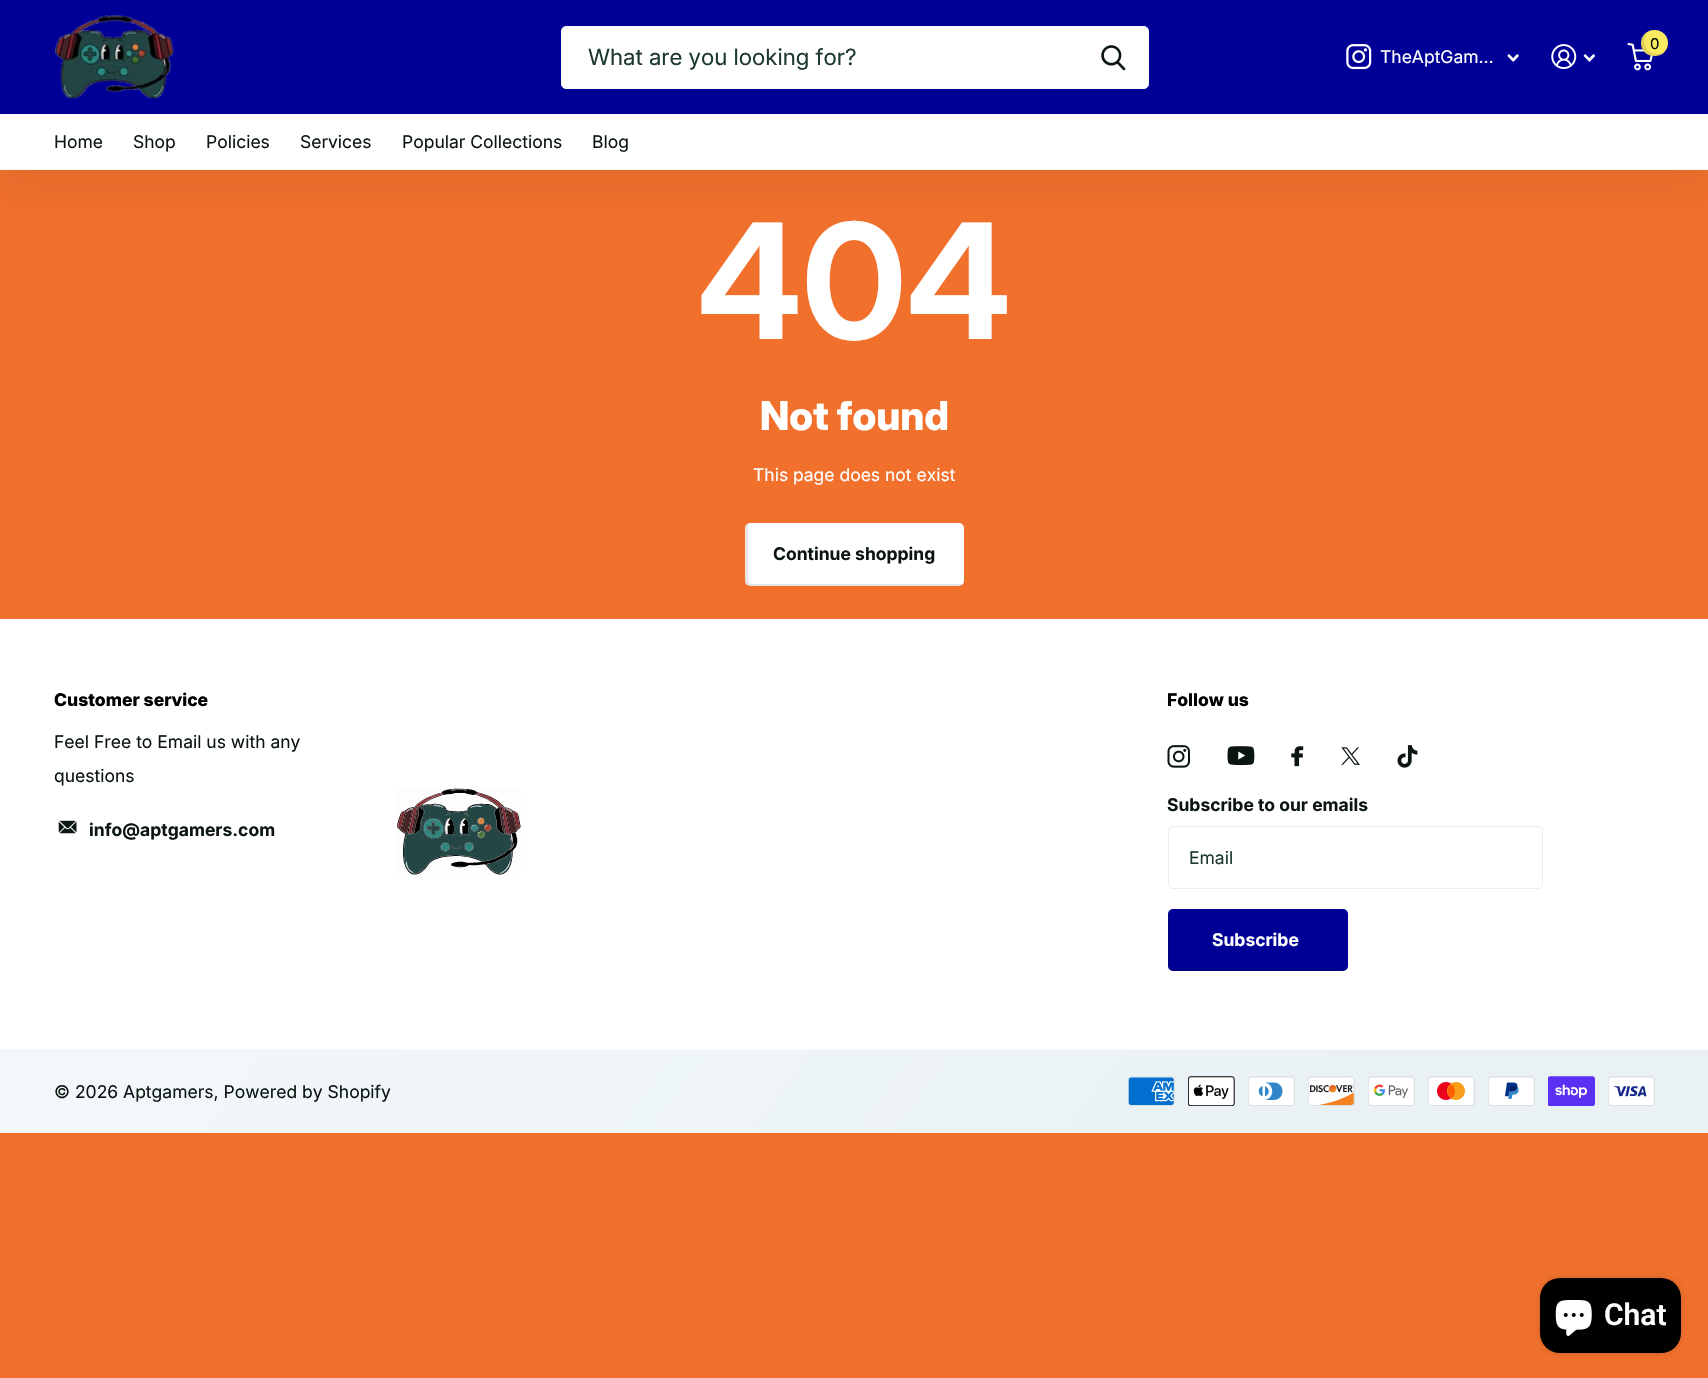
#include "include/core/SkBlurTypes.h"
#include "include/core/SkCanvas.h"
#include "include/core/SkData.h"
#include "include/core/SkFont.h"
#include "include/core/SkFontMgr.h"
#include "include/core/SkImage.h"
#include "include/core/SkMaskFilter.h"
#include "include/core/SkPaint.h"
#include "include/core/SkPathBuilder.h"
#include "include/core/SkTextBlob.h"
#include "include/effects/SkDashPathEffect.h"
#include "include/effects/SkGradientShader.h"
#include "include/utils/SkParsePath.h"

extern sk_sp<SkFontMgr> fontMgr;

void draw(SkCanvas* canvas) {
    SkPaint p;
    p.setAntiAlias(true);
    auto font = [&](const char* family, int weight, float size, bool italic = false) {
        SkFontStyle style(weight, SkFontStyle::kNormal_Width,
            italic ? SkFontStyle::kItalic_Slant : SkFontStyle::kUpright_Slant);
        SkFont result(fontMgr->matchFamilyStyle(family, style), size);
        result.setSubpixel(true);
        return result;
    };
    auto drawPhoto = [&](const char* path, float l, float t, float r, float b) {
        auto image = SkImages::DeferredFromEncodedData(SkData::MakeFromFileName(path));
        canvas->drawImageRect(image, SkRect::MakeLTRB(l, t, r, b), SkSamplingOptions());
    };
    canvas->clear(0xFFF0702C);
    p.setColor(0x12000000);
    p.setMaskFilter(SkMaskFilter::MakeBlur(kNormal_SkBlurStyle, 20));
    canvas->drawRect(SkRect::MakeLTRB(0, 11, 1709, 181), p);
    p.setMaskFilter(nullptr);
    p.setColor(0xFF000096);
    canvas->drawRect(SkRect::MakeLTRB(0, 0, 1708, 114), p);
    p.setColor(0xFFFAFAFA);
    canvas->drawRect(SkRect::MakeLTRB(0, 169, 1708, 170), p);
    drawPhoto("media/1.png", 55, 15, 174, 99);
    p.setColor(0xFFFFFFFF);
    canvas->drawRoundRect(SkRect::MakeLTRB(561.5f, 26.5f, 1148.5f, 88.5f), 4.5f, 4.5f, p);
    p.setStyle(SkPaint::kStroke_Style);
    p.setStrokeWidth(1);
    p.setColor(0xFFFAFAFA);
    canvas->drawRoundRect(SkRect::MakeLTRB(561.5f, 26.5f, 1148.5f, 88.5f), 4.5f, 4.5f, p);
    auto font1 = font("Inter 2", 400, 22.5f);
    p.setStyle(SkPaint::kFill_Style);
    p.setColor(0xFF1C3830);
    canvas->drawString("What are you looking for?", 588, 65, font1, p);
    drawPhoto("media/2.png", 1101, 45, 1126, 71);
    drawPhoto("media/3.png", 1346, 44, 1372, 70);
    auto font2 = font("Inter", 400, 17.5f);
    p.setColor(0xFFFFFFFF);
    canvas->drawString("TheAptGam…", 1380, 63, font2, p);
    drawPhoto("media/4.png", 1507, 54, 1519, 62);
    drawPhoto("media/5.png", 1551, 44, 1577, 70);
    drawPhoto("media/6.png", 1583, 54, 1595, 62);
    drawPhoto("media/7.png", 1627, 43, 1653, 71);
    p.setColor(0xFFFBEA61);
    canvas->drawRoundRect(SkRect::MakeLTRB(1641, 30, 1668, 56), 13, 13, p);
    p.setColor(0x1A000000);
    canvas->drawPath(SkPathBuilder().moveTo(1664.5f, 51.5f).cubicTo(1662.5f, 53, 1660, 54, 1657, 54).cubicTo(1644, 54, 1641, 38.5f, 1648, 31.5f).cubicTo(1640.5f, 35.5f, 1638.5f, 46, 1645, 52).cubicTo(1650, 57.5f, 1659.5f, 57.5f, 1664.5f, 51.5f).close().detach(), p);
    auto font3 = font("Inter", 400, 15);
    p.setColor(0xFF000000);
    canvas->drawString("0", 1650, 49, font3, p);
    p.setColor(0xFFFFFFFF);
    canvas->drawRect(SkRect::MakeLTRB(0, 114, 1708, 169), p);
    p.setColor(0xFF0B1613);
    {
        const struct { const char* s; float x, y; } items[] = {
            {"Home", 54, 148},
            {"Shop", 133, 148},
            {"Policies", 206, 148},
            {"Services", 300, 148},
            {"Popular Collections", 402, 148},
            {"Blog", 592, 148},
        };
        for (auto [s, x, y] : items) {
            canvas->drawString(s, x, y, font2, p);
        }
    }
    auto font4 = font("Inter", 700, 160);
    p.setColor(0xFFFFFFFF);
    canvas->drawString("404", 697, 339, font4, p);
    auto font5 = font("Inter", 800, 40);
    canvas->drawString("Not found", 760, 430, font5, p);
    canvas->drawString("This page does not exist", 753, 481, font2, p);
    canvas->drawRoundRect(SkRect::MakeLTRB(745, 523, 964, 586), 5, 5, p);
    p.setColor(0x1A000000);
    canvas->drawPath(SkPathBuilder().moveTo(748, 523).cubicTo(746, 524, 745, 526, 745, 528).lineTo(745, 581).cubicTo(745, 584, 747, 586, 750, 586).lineTo(959, 586).cubicTo(961, 586, 962, 585, 963, 584).lineTo(961, 584).lineTo(752, 584).cubicTo(750, 584, 748, 582, 748, 579).close().detach(), p);
    auto font6 = font("Inter 2", 700, 17.5f);
    p.setColor(0xFF0B1613);
    canvas->drawString("Continue shopping", 773, 560, font6, p);
    p.setColor(0xFFFFFFFF);
    canvas->drawRect(SkRect::MakeLTRB(0, 619, 1708, 1049), p);
    auto font7 = font("Inter 2", 800, 17.5f);
    p.setColor(0xFF000000);
    canvas->drawString("Customer service", 54, 706, font7, p);
    p.setColor(0xFF0B1613);
    canvas->drawString("Feel Free to Email us with any", 54, 748, font2, p);
    canvas->drawString("questions", 54, 782, font2, p);
    drawPhoto("media/8.png", 58, 820, 77, 834);
    canvas->drawString("info@aptgamers.com", 89, 836, font6, p);
    drawPhoto("media/9.png", 397, 788, 521, 875);
    p.setColor(0xFF000000);
    canvas->drawString("Follow us", 1167, 706, font7, p);
    drawPhoto("media/10.png", 1167, 745, 1190, 768);
    drawPhoto("media/11.png", 1227, 746, 1255, 766);
    drawPhoto("media/12.png", 1291, 746, 1304, 767);
    drawPhoto("media/13.png", 1341, 747, 1360, 765);
    drawPhoto("media/14.png", 1397, 745, 1418, 768);
    p.setColor(0xFF0B1613);
    canvas->drawString("Subscribe to our emails", 1167, 811, font6, p);
    p.setStyle(SkPaint::kStroke_Style);
    p.setColor(0xFFECEDEC);
    canvas->drawRoundRect(SkRect::MakeLTRB(1168.5f, 826.5f, 1542.5f, 888.5f), 4.5f, 4.5f, p);
    p.setStyle(SkPaint::kFill_Style);
    p.setColor(0xFF1C3830);
    canvas->drawString("Email", 1189, 864, font2, p);
    p.setColor(0xFF000096);
    canvas->drawRoundRect(SkRect::MakeLTRB(1168, 909, 1348, 971), 5, 5, p);
    p.setColor(0x1A000000);
    canvas->drawPath(SkPathBuilder().moveTo(1170, 910).cubicTo(1169, 911, 1168, 912, 1168, 914).lineTo(1168, 966).cubicTo(1168, 969, 1170, 971, 1173, 971).lineTo(1343, 971).cubicTo(1345, 971, 1346, 970, 1347, 969).lineTo(1345, 969).lineTo(1175, 969).cubicTo(1172, 969, 1170, 967, 1170, 964).close().detach(), p);
    p.setColor(0xFFFFFFFF);
    canvas->drawString("Subscribe", 1212, 946, font6, p);
    {
        const SkColor colors[] = {0xFFF2F7F9, 0xFFE9F1F4};
        const float stops[] = {0.11f, 0.81f};
        const SkPoint ends[] = {{290, 666}, {1419, 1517}};
        p.setShader(SkGradientShader::MakeLinear(ends, colors, stops, 2, SkTileMode::kClamp));
        p.setAlpha(255);
    }
    canvas->drawRect(SkRect::MakeLTRB(0, 1050, 1708, 1133), p);
    p.setShader(nullptr);
    p.setColor(0xFFFAFAFA);
    canvas->drawRect(SkRect::MakeLTRB(0, 1049, 1708, 1050), p);
    p.setColor(0xFF0B1613);
    canvas->drawString("© 2026 Aptgamers, Powered by Shopify", 54, 1098, font2, p);
    drawPhoto("media/15.png", 1128, 1076, 1175, 1106);
    drawPhoto("media/16.png", 1188, 1076, 1235, 1106);
    drawPhoto("media/17.png", 1248, 1076, 1295, 1106);
    drawPhoto("media/18.png", 1308, 1076, 1355, 1106);
    drawPhoto("media/19.png", 1368, 1076, 1415, 1106);
    drawPhoto("media/20.png", 1428, 1076, 1475, 1106);
    drawPhoto("media/21.png", 1488, 1076, 1535, 1106);
    drawPhoto("media/22.png", 1548, 1076, 1595, 1106);
    drawPhoto("media/23.png", 1608, 1076, 1655, 1106);
    p.setColor(0x26000000);
    p.setMaskFilter(SkMaskFilter::MakeBlur(kNormal_SkBlurStyle, 3));
    canvas->drawRoundRect(SkRect::MakeLTRB(1540, 1278, 1681, 1353), 20, 20, p);
    p.setMaskFilter(nullptr);
    p.setColor(0xFF000000);
    canvas->drawRoundRect(SkRect::MakeLTRB(1540, 1278, 1681, 1353), 20, 20, p);
    drawPhoto("media/24.png", 1555, 1300, 1592, 1336);
    auto font8 = font("Roboto", 600, 30);
    p.setColor(0xFFFFFFFF);
    canvas->drawString("Chat", 1604, 1325, font8, p);
}
